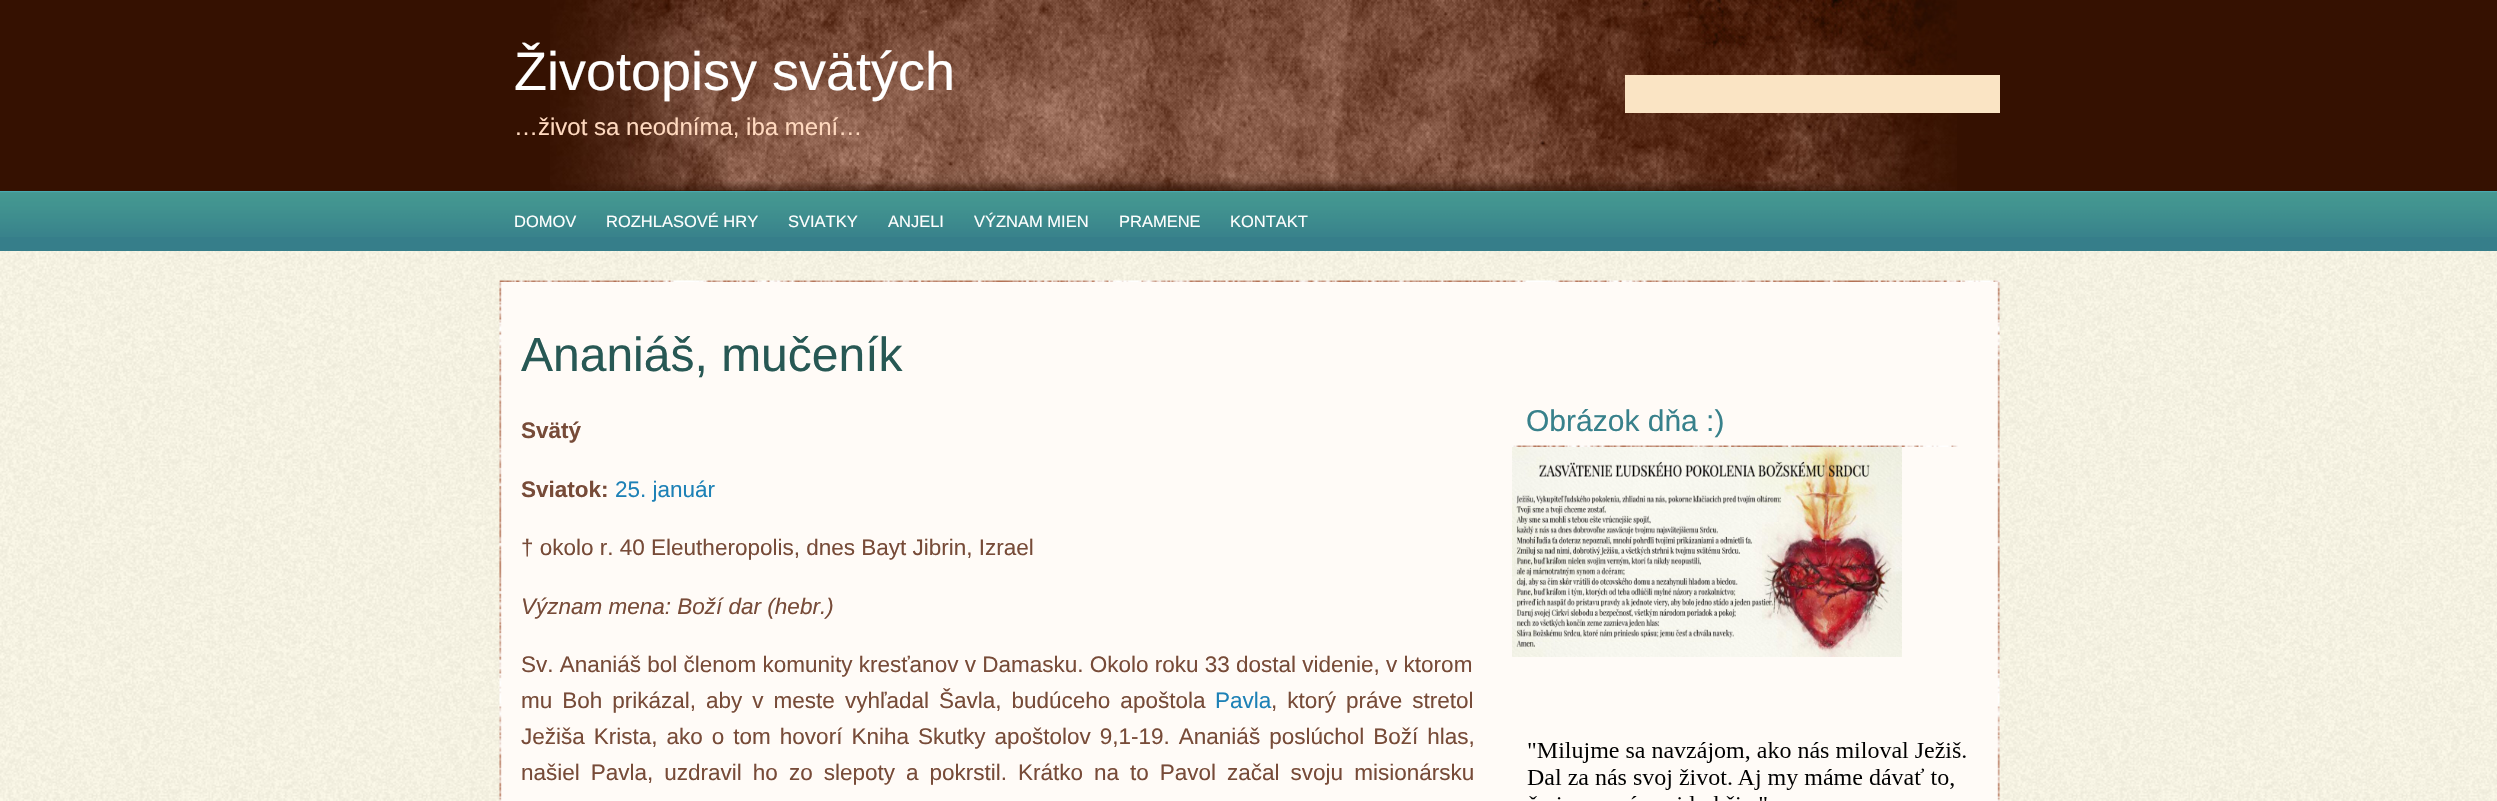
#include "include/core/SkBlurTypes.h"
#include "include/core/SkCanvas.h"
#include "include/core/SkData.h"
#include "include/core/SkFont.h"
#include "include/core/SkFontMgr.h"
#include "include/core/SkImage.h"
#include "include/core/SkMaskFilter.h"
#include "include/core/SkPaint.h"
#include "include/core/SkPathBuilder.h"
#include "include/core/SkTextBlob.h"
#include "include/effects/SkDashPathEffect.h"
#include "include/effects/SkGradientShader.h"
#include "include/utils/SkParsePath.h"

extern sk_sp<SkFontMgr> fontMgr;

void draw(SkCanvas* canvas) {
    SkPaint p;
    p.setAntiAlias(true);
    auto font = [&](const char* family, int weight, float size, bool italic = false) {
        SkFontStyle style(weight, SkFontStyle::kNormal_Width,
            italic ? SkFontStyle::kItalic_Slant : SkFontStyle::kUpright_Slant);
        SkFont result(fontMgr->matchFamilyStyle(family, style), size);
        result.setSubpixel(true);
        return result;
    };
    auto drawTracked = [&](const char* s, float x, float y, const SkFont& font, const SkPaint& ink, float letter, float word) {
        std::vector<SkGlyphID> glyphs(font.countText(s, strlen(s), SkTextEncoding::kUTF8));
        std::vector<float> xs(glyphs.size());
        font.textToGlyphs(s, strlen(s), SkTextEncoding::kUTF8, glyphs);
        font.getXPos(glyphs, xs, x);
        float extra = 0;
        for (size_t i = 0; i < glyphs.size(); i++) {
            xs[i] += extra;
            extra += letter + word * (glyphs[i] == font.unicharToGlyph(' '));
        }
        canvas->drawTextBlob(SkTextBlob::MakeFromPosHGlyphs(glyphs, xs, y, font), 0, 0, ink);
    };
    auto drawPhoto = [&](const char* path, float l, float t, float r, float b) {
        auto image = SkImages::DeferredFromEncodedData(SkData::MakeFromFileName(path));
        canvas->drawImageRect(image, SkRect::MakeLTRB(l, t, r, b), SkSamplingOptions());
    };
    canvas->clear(0xFFFFFFFF);
    drawPhoto("media/1.png", 0, 251, 2497, 801);
    p.setColor(0xFF351101);
    canvas->drawRect(SkRect::MakeLTRB(0, 0, 2497, 191), p);
    drawPhoto("media/2.png", 550, 0, 1957, 191);
    auto font1 = font("Liberation Sans", 400, 54);
    p.setColor(0xFFFFFFFF);
    canvas->drawString("Životopisy svätých", 514, 90, font1, p);
    auto font2 = font("Liberation Sans", 400, 24);
    p.setColor(0xFFFFD9BF);
    canvas->drawString("…život sa neodníma, iba mení…", 514, 135, font2, p);
    p.setColor(0xFFFAE4C4);
    canvas->drawRect(SkRect::MakeLTRB(1625, 75, 2000, 113), p);
    p.setColor(0xFF367E8A);
    canvas->drawRect(SkRect::MakeLTRB(0, 237, 2497, 251), p);
    drawPhoto("media/3.png", 0, 191, 2497, 237);
    auto font3 = font("Liberation Sans", 400, 16.5f);
    p.setColor(0xFFFFFFFF);
    {
        const struct { const char* s; float x, y; } items[] = {
            {"DOMOV", 514, 227},
            {"ROZHLASOVÉ HRY", 606, 227},
            {"SVIATKY", 788, 227},
            {"ANJELI", 888, 227},
            {"VÝZNAM MIEN", 974, 227},
            {"PRAMENE", 1119, 227},
            {"KONTAKT", 1230, 227},
        };
        for (auto [s, x, y] : items) {
            canvas->drawString(s, x, y, font3, p);
        }
    }
    drawPhoto("media/4.png", 499, 280, 2000, 282);
    drawPhoto("media/5.png", 499, 282, 2000, 801);
    auto font4 = font("Liberation Sans", 400, 48);
    p.setColor(0xFF275854);
    canvas->drawString("Ananiáš, mučeník", 521, 371, font4, p);
    auto font5 = font("Liberation Sans", 700, 22.5f);
    p.setColor(0xFF774B38);
    canvas->drawString("Svätý", 521, 438, font5, p);
    canvas->drawString("Sviatok:", 521, 497, font5, p);
    auto font6 = font("Liberation Sans", 400, 22.5f);
    p.setColor(0xFF1D81B6);
    canvas->drawString("25. január", 615, 497, font6, p);
    p.setColor(0xFF774B38);
    canvas->drawString("† okolo r. 40 Eleutheropolis, dnes Bayt Jibrin, Izrael", 521, 555, font6, p);
    auto font7 = font("Liberation Sans", 400, 22.5f, true);
    canvas->drawString("Význam mena: Boží dar (hebr.)", 521, 614, font7, p);
    canvas->drawString("Sv. Ananiáš bol členom komunity kresťanov v Damasku. Okolo roku 33 dostal videnie, v ktorom", 521, 672, font6, p);
    drawTracked("mu Boh prikázal, aby v meste vyhľadal Šavla, budúceho apoštola", 521, 708, font6, p, 0, 3.75f);
    p.setColor(0xFF1D81B6);
    canvas->drawString("Pavla", 1215, 708, font6, p);
    p.setColor(0xFF774B38);
    drawTracked(", ktorý práve stretol", 1271, 708, font6, p, 0, 3.75f);
    drawTracked("Ježiša Krista, ako o tom hovorí Kniha Skutky apoštolov 9,1-19. Ananiáš poslúchol Boží hlas,", 521, 744, font6, p, 0, 2.75f);
    drawTracked("našiel Pavla, uzdravil ho zo slepoty a pokrstil. Krátko na to Pavol začal svoju misionársku", 521, 780, font6, p, 0, 4.75f);
    drawPhoto("media/6.png", 1512, 445, 1958, 447);
    auto font8 = font("Liberation Sans", 400, 30);
    p.setColor(0xFF38818B);
    canvas->drawString("Obrázok dňa :)", 1526, 431, font8, p);
    drawPhoto("media/7.png", 1512, 447, 1902, 657);
    drawPhoto("media/8.png", 1527, 742, 1966, 801);
}
